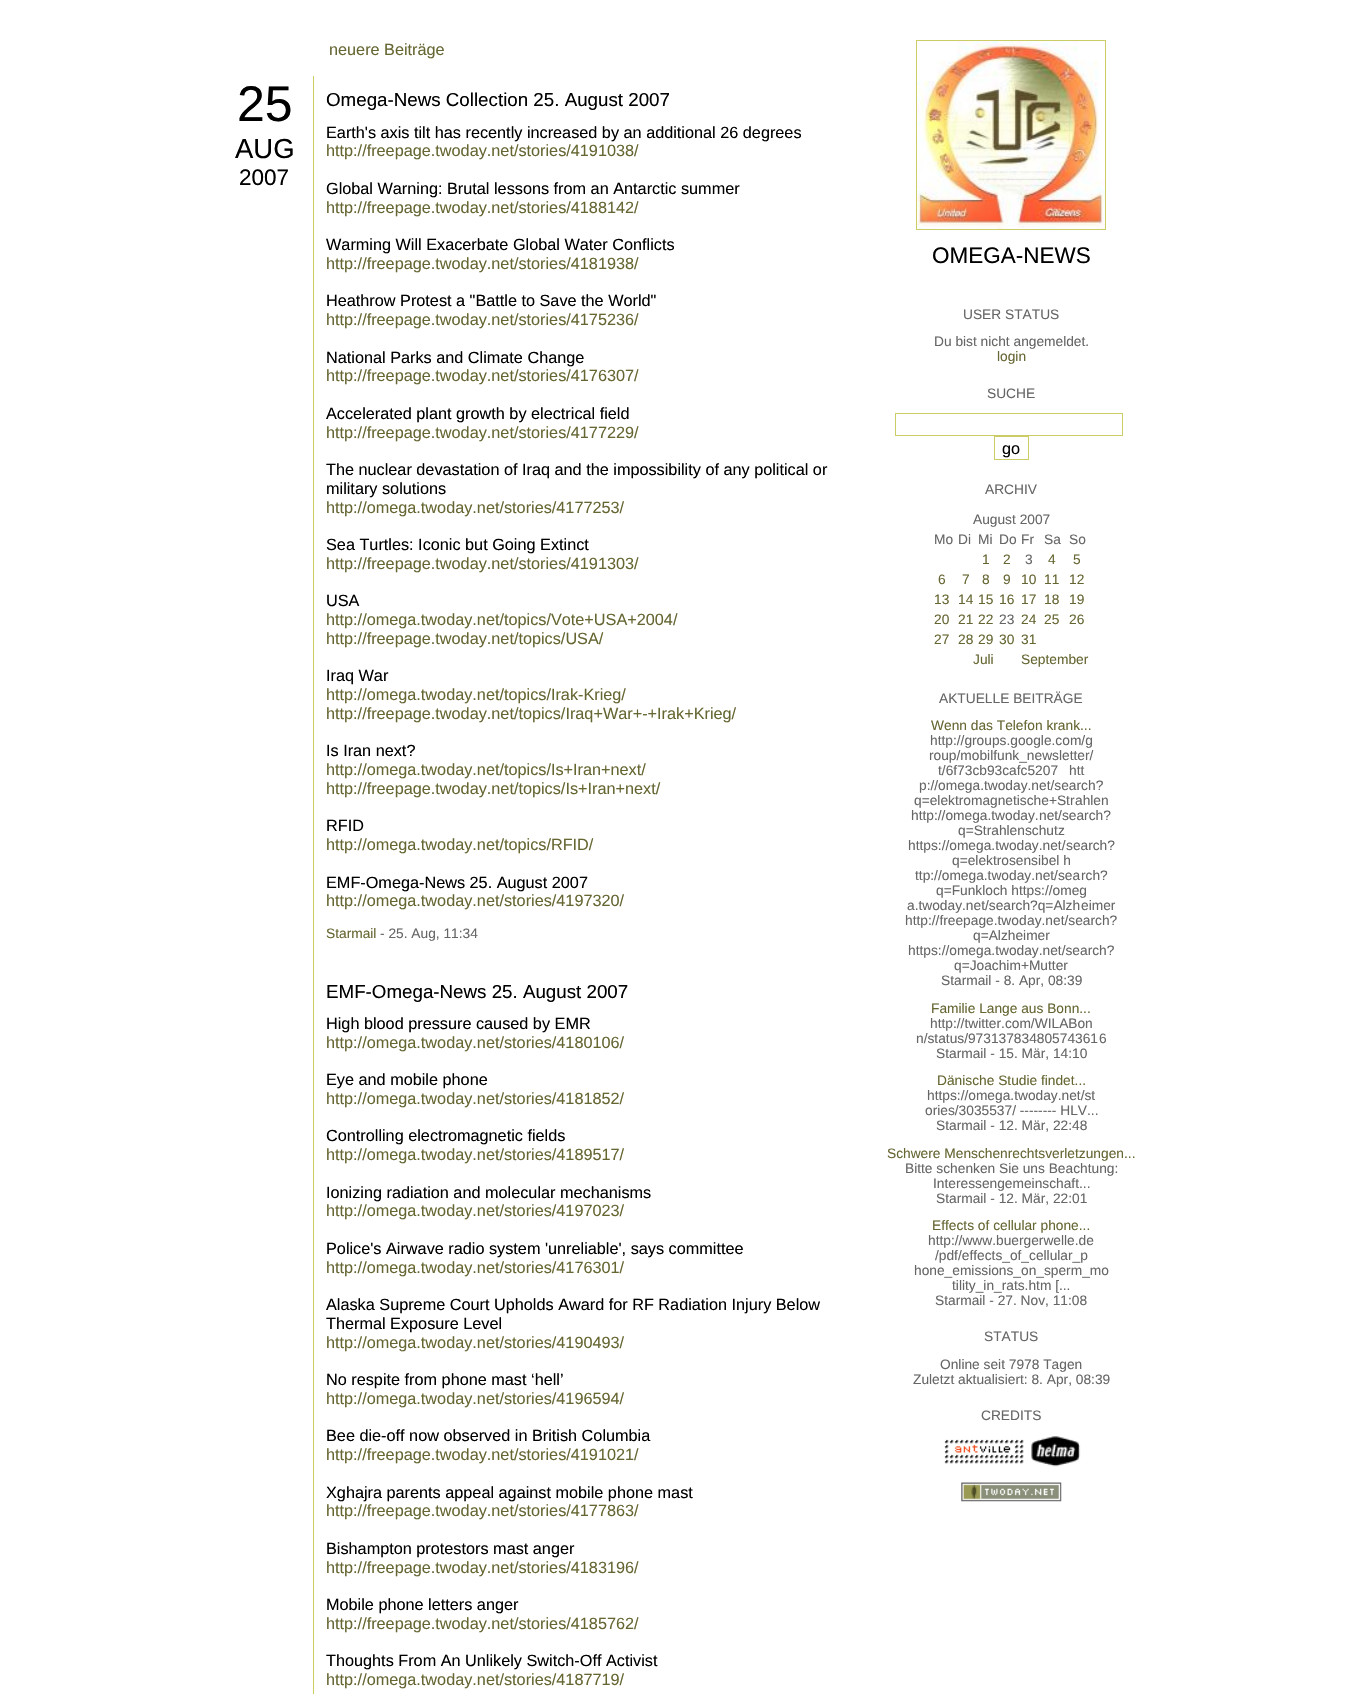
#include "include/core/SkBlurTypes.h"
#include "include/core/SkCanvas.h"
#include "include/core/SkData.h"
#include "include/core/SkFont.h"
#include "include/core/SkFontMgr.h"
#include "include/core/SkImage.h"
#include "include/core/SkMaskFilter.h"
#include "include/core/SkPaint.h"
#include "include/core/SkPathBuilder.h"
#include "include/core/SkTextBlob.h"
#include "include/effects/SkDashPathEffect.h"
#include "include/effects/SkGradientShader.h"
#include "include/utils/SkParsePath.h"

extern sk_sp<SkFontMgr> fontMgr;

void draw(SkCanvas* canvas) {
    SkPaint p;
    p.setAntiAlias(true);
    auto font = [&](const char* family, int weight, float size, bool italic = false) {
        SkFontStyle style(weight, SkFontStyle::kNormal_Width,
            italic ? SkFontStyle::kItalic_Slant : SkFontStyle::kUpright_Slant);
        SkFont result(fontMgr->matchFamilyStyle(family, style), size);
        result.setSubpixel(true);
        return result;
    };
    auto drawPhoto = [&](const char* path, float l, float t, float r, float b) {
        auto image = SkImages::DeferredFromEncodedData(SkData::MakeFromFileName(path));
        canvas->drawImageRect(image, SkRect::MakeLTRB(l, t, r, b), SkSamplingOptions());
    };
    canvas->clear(0xFFFFFFFF);
    auto font1 = font("Liberation Sans", 400, 16.25f);
    p.setColor(0xFF666633);
    canvas->drawString("neuere Beiträge", 329, 55, font1, p);
    auto font2 = font("Liberation Sans", 400, 50);
    p.setColor(0xFF000000);
    canvas->drawString("25", 237, 121, font2, p);
    auto font3 = font("Liberation Sans", 400, 27.5f);
    canvas->drawString("AUG", 235, 158, font3, p);
    auto font4 = font("Liberation Sans", 400, 22.5f);
    canvas->drawString("2007", 239, 185, font4, p);
    p.setColor(0xFFCCCC66);
    canvas->drawRect(SkRect::MakeLTRB(313, 76, 314, 1694), p);
    auto font5 = font("Liberation Sans", 400, 18.75f);
    p.setColor(0xFF000000);
    canvas->drawString("Omega-News Collection 25. August 2007", 326, 106, font5, p);
    canvas->drawString("Earth's axis tilt has recently increased by an additional 26 degrees", 326, 138, font1, p);
    p.setColor(0xFF666633);
    canvas->drawString("http://freepage.twoday.net/stories/4191038/", 326, 156, font1, p);
    p.setColor(0xFF000000);
    canvas->drawString("Global Warning: Brutal lessons from an Antarctic summer", 326, 194, font1, p);
    p.setColor(0xFF666633);
    canvas->drawString("http://freepage.twoday.net/stories/4188142/", 326, 213, font1, p);
    p.setColor(0xFF000000);
    canvas->drawString("Warming Will Exacerbate Global Water Conflicts", 326, 250, font1, p);
    p.setColor(0xFF666633);
    canvas->drawString("http://freepage.twoday.net/stories/4181938/", 326, 269, font1, p);
    p.setColor(0xFF000000);
    canvas->drawString("Heathrow Protest a \"Battle to Save the World\"", 326, 306, font1, p);
    p.setColor(0xFF666633);
    canvas->drawString("http://freepage.twoday.net/stories/4175236/", 326, 325, font1, p);
    p.setColor(0xFF000000);
    canvas->drawString("National Parks and Climate Change", 326, 363, font1, p);
    p.setColor(0xFF666633);
    canvas->drawString("http://freepage.twoday.net/stories/4176307/", 326, 381, font1, p);
    p.setColor(0xFF000000);
    canvas->drawString("Accelerated plant growth by electrical field", 326, 419, font1, p);
    p.setColor(0xFF666633);
    canvas->drawString("http://freepage.twoday.net/stories/4177229/", 326, 438, font1, p);
    p.setColor(0xFF000000);
    canvas->drawString("The nuclear devastation of Iraq and the impossibility of any political or", 326, 475, font1, p);
    canvas->drawString("military solutions", 326, 494, font1, p);
    p.setColor(0xFF666633);
    canvas->drawString("http://omega.twoday.net/stories/4177253/", 326, 513, font1, p);
    p.setColor(0xFF000000);
    canvas->drawString("Sea Turtles: Iconic but Going Extinct", 326, 550, font1, p);
    p.setColor(0xFF666633);
    canvas->drawString("http://freepage.twoday.net/stories/4191303/", 326, 569, font1, p);
    p.setColor(0xFF000000);
    canvas->drawString("USA", 326, 606, font1, p);
    p.setColor(0xFF666633);
    canvas->drawString("http://omega.twoday.net/topics/Vote+USA+2004/", 326, 625, font1, p);
    canvas->drawString("http://freepage.twoday.net/topics/USA/", 326, 644, font1, p);
    p.setColor(0xFF000000);
    canvas->drawString("Iraq War", 326, 681, font1, p);
    p.setColor(0xFF666633);
    canvas->drawString("http://omega.twoday.net/topics/Irak-Krieg/", 326, 700, font1, p);
    canvas->drawString("http://freepage.twoday.net/topics/Iraq+War+-+Irak+Krieg/", 326, 719, font1, p);
    p.setColor(0xFF000000);
    canvas->drawString("Is Iran next?", 326, 756, font1, p);
    p.setColor(0xFF666633);
    canvas->drawString("http://omega.twoday.net/topics/Is+Iran+next/", 326, 775, font1, p);
    canvas->drawString("http://freepage.twoday.net/topics/Is+Iran+next/", 326, 794, font1, p);
    p.setColor(0xFF000000);
    canvas->drawString("RFID", 326, 831, font1, p);
    p.setColor(0xFF666633);
    canvas->drawString("http://omega.twoday.net/topics/RFID/", 326, 850, font1, p);
    p.setColor(0xFF000000);
    canvas->drawString("EMF-Omega-News 25. August 2007", 326, 888, font1, p);
    p.setColor(0xFF666633);
    canvas->drawString("http://omega.twoday.net/stories/4197320/", 326, 906, font1, p);
    auto font6 = font("Liberation Sans", 400, 13.75f);
    canvas->drawString("Starmail", 326, 938, font6, p);
    p.setColor(0xFF666666);
    canvas->drawString("- 25. Aug, 11:34", 380, 938, font6, p);
    p.setColor(0xFF000000);
    canvas->drawString("EMF-Omega-News 25. August 2007", 326, 998, font5, p);
    canvas->drawString("High blood pressure caused by EMR", 326, 1029, font1, p);
    p.setColor(0xFF666633);
    canvas->drawString("http://omega.twoday.net/stories/4180106/", 326, 1048, font1, p);
    p.setColor(0xFF000000);
    canvas->drawString("Eye and mobile phone", 326, 1085, font1, p);
    p.setColor(0xFF666633);
    canvas->drawString("http://omega.twoday.net/stories/4181852/", 326, 1104, font1, p);
    p.setColor(0xFF000000);
    canvas->drawString("Controlling electromagnetic fields", 326, 1141, font1, p);
    p.setColor(0xFF666633);
    canvas->drawString("http://omega.twoday.net/stories/4189517/", 326, 1160, font1, p);
    p.setColor(0xFF000000);
    canvas->drawString("Ionizing radiation and molecular mechanisms", 326, 1198, font1, p);
    p.setColor(0xFF666633);
    canvas->drawString("http://omega.twoday.net/stories/4197023/", 326, 1216, font1, p);
    p.setColor(0xFF000000);
    canvas->drawString("Police's Airwave radio system 'unreliable', says committee", 326, 1254, font1, p);
    p.setColor(0xFF666633);
    canvas->drawString("http://omega.twoday.net/stories/4176301/", 326, 1273, font1, p);
    p.setColor(0xFF000000);
    canvas->drawString("Alaska Supreme Court Upholds Award for RF Radiation Injury Below", 326, 1310, font1, p);
    canvas->drawString("Thermal Exposure Level", 326, 1329, font1, p);
    p.setColor(0xFF666633);
    canvas->drawString("http://omega.twoday.net/stories/4190493/", 326, 1348, font1, p);
    p.setColor(0xFF000000);
    canvas->drawString("No respite from phone mast ‘hell’", 326, 1385, font1, p);
    p.setColor(0xFF666633);
    canvas->drawString("http://omega.twoday.net/stories/4196594/", 326, 1404, font1, p);
    p.setColor(0xFF000000);
    canvas->drawString("Bee die-off now observed in British Columbia", 326, 1441, font1, p);
    p.setColor(0xFF666633);
    canvas->drawString("http://freepage.twoday.net/stories/4191021/", 326, 1460, font1, p);
    p.setColor(0xFF000000);
    canvas->drawString("Xghajra parents appeal against mobile phone mast", 326, 1498, font1, p);
    p.setColor(0xFF666633);
    canvas->drawString("http://freepage.twoday.net/stories/4177863/", 326, 1516, font1, p);
    p.setColor(0xFF000000);
    canvas->drawString("Bishampton protestors mast anger", 326, 1554, font1, p);
    p.setColor(0xFF666633);
    canvas->drawString("http://freepage.twoday.net/stories/4183196/", 326, 1573, font1, p);
    p.setColor(0xFF000000);
    canvas->drawString("Mobile phone letters anger", 326, 1610, font1, p);
    p.setColor(0xFF666633);
    canvas->drawString("http://freepage.twoday.net/stories/4185762/", 326, 1629, font1, p);
    p.setColor(0xFF000000);
    canvas->drawString("Thoughts From An Unlikely Switch-Off Activist", 326, 1666, font1, p);
    p.setColor(0xFF666633);
    canvas->drawString("http://omega.twoday.net/stories/4187719/", 326, 1685, font1, p);
    p.setStyle(SkPaint::kStroke_Style);
    p.setStrokeWidth(1);
    p.setColor(0xFFCCCC66);
    canvas->drawRect(SkRect::MakeLTRB(916.5f, 40.5f, 1105.5f, 229.5f), p);
    drawPhoto("media/1.png", 917, 41, 1105, 229);
    p.setStyle(SkPaint::kFill_Style);
    p.setColor(0xFF000000);
    canvas->drawString("OMEGA-NEWS", 932, 263, font4, p);
    p.setColor(0xFF666666);
    canvas->drawString("USER STATUS", 963, 319, font6, p);
    canvas->drawString("Du bist nicht angemeldet.", 934, 346, font6, p);
    p.setColor(0xFF666633);
    canvas->drawString("login", 997, 361, font6, p);
    p.setColor(0xFF666666);
    canvas->drawString("SUCHE", 987, 398, font6, p);
    p.setStyle(SkPaint::kStroke_Style);
    p.setColor(0xFFCCCC66);
    canvas->drawRect(SkRect::MakeLTRB(895.5f, 413.5f, 1122.5f, 435.5f), p);
    canvas->drawRect(SkRect::MakeLTRB(994.5f, 436.5f, 1028.5f, 459.5f), p);
    p.setStyle(SkPaint::kFill_Style);
    p.setColor(0xFF000000);
    canvas->drawString("go", 1002, 454, font1, p);
    p.setColor(0xFF666666);
    {
        const struct { const char* s; float x, y; } items[] = {
            {"ARCHIV", 985, 494},
            {"August 2007", 973, 524},
            {"Mo", 934, 544},
            {"Di", 958, 544},
            {"Mi", 978, 544},
            {"Do", 999, 544},
            {"Fr", 1021, 544},
            {"Sa", 1044, 544},
            {"So", 1069, 544},
        };
        for (auto [s, x, y] : items) {
            canvas->drawString(s, x, y, font6, p);
        }
    }
    p.setColor(0xFF666633);
    canvas->drawString("1", 982, 564, font6, p);
    canvas->drawString("2", 1003, 564, font6, p);
    p.setColor(0xFF666666);
    canvas->drawString("3", 1025, 564, font6, p);
    p.setColor(0xFF666633);
    {
        const struct { const char* s; float x, y; } items[] = {
            {"4", 1048, 564},
            {"5", 1073, 564},
            {"6", 938, 584},
            {"7", 962, 584},
            {"8", 982, 584},
            {"9", 1003, 584},
            {"10", 1021, 584},
            {"11", 1044, 584},
            {"12", 1069, 584},
            {"13", 934, 604},
            {"14", 958, 604},
            {"15", 978, 604},
            {"16", 999, 604},
            {"17", 1021, 604},
            {"18", 1044, 604},
            {"19", 1069, 604},
            {"20", 934, 624},
            {"21", 958, 624},
            {"22", 978, 624},
        };
        for (auto [s, x, y] : items) {
            canvas->drawString(s, x, y, font6, p);
        }
    }
    p.setColor(0xFF666666);
    canvas->drawString("23", 999, 624, font6, p);
    p.setColor(0xFF666633);
    {
        const struct { const char* s; float x, y; } items[] = {
            {"24", 1021, 624},
            {"25", 1044, 624},
            {"26", 1069, 624},
            {"27", 934, 644},
            {"28", 958, 644},
            {"29", 978, 644},
            {"30", 999, 644},
            {"31", 1021, 644},
            {"Juli", 973, 664},
            {"September", 1021, 664},
        };
        for (auto [s, x, y] : items) {
            canvas->drawString(s, x, y, font6, p);
        }
    }
    p.setColor(0xFF666666);
    canvas->drawString("AKTUELLE BEITRÄGE", 939, 703, font6, p);
    p.setColor(0xFF666633);
    canvas->drawString("Wenn das Telefon krank...", 931, 730, font6, p);
    p.setColor(0xFF666666);
    {
        const struct { const char* s; float x, y; } items[] = {
            {"http://groups.google.com/g", 930, 745},
            {"roup/mobilfunk_newsletter/", 929, 760},
            {"t/6f73cb93cafc5207", 938, 775},
            {"htt", 1069, 775},
            {"p://omega.twoday.net/searc", 919, 790},
            {"h?", 1088, 790},
            {"q=elektromagnetische+Str", 914, 805},
            {"ahlen", 1075, 805},
            {"http://omega.twoday.", 911, 820},
            {"net/search?", 1039, 820},
            {"q=Strahlenschut", 958, 835},
            {"z", 1058, 835},
            {"https://omega.twoday.net/", 908, 850},
            {"search?", 1066, 850},
            {"q=elektrosensibel h", 952, 865},
            {"ttp://omega.twoday.net/sea", 915, 880},
            {"rch?", 1081, 880},
            {"q=Funkloch https://omeg", 936, 895},
            {"a.twoday.net/search?q=Alzh", 907, 910},
            {"eimer", 1081, 910},
            {"http://freepage.twod", 905, 925},
            {"ay.net/search?", 1027, 925},
            {"q=Alzheimer", 973, 940},
            {"https://omega.twoday.net/se", 908, 955},
            {"arch?", 1080, 955},
            {"q=Joachim+Mutter", 954, 970},
            {"Starmail - 8. Apr, 08:39", 941, 985},
        };
        for (auto [s, x, y] : items) {
            canvas->drawString(s, x, y, font6, p);
        }
    }
    p.setColor(0xFF666633);
    canvas->drawString("Familie Lange aus Bonn...", 931, 1013, font6, p);
    p.setColor(0xFF666666);
    {
        const struct { const char* s; float x, y; } items[] = {
            {"http://twitter.com/WILABon", 930, 1028},
            {"n/status/97313783480574361", 916, 1043},
            {"6", 1099, 1043},
            {"Starmail - 15. Mär, 14:10", 936, 1058},
        };
        for (auto [s, x, y] : items) {
            canvas->drawString(s, x, y, font6, p);
        }
    }
    p.setColor(0xFF666633);
    canvas->drawString("Dänische Studie findet...", 937, 1085, font6, p);
    p.setColor(0xFF666666);
    {
        const struct { const char* s; float x, y; } items[] = {
            {"https://omega.twoday.net/st", 927, 1100},
            {"ories/3035537/ -------- HLV...", 925, 1115},
            {"Starmail - 12. Mär, 22:48", 936, 1130},
        };
        for (auto [s, x, y] : items) {
            canvas->drawString(s, x, y, font6, p);
        }
    }
    p.setColor(0xFF666633);
    canvas->drawString("Schwere Menschenrechtsverletzungen", 887, 1158, font6, p);
    canvas->drawString("...", 1124, 1158, font6, p);
    p.setColor(0xFF666666);
    {
        const struct { const char* s; float x, y; } items[] = {
            {"Bitte schenken Sie uns Beachtung:", 905, 1173},
            {"Interessengemeinschaft...", 933, 1188},
            {"Starmail - 12. Mär, 22:01", 936, 1203},
        };
        for (auto [s, x, y] : items) {
            canvas->drawString(s, x, y, font6, p);
        }
    }
    p.setColor(0xFF666633);
    canvas->drawString("Effects of cellular phone...", 932, 1230, font6, p);
    p.setColor(0xFF666666);
    {
        const struct { const char* s; float x, y; } items[] = {
            {"http://www.buergerwelle.de", 928, 1245},
            {"/pdf/effects_of_cellular_p", 935, 1260},
            {"hone_emissions_on_sperm_mo", 914, 1275},
            {"tility_in_rats.htm [...", 952, 1290},
            {"Starmail - 27. Nov, 11:08", 935, 1305},
            {"STATUS", 984, 1341},
            {"Online seit 7978 Tagen", 940, 1369},
            {"Zuletzt aktualisiert: 8. Apr, 08:39", 913, 1384},
            {"CREDITS", 981, 1420},
        };
        for (auto [s, x, y] : items) {
            canvas->drawString(s, x, y, font6, p);
        }
    }
    drawPhoto("media/2.png", 944, 1439, 1024, 1464);
    drawPhoto("media/3.png", 1031, 1436, 1081, 1467);
    drawPhoto("media/4.png", 961, 1482, 1062, 1502);
}
